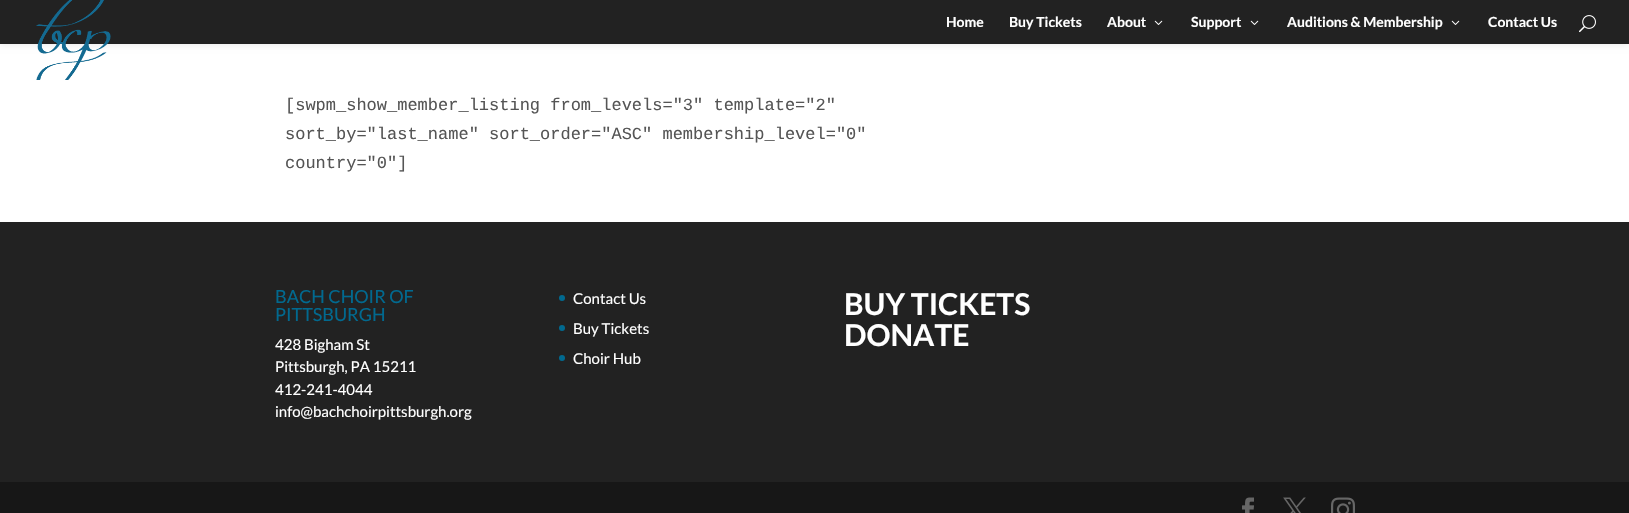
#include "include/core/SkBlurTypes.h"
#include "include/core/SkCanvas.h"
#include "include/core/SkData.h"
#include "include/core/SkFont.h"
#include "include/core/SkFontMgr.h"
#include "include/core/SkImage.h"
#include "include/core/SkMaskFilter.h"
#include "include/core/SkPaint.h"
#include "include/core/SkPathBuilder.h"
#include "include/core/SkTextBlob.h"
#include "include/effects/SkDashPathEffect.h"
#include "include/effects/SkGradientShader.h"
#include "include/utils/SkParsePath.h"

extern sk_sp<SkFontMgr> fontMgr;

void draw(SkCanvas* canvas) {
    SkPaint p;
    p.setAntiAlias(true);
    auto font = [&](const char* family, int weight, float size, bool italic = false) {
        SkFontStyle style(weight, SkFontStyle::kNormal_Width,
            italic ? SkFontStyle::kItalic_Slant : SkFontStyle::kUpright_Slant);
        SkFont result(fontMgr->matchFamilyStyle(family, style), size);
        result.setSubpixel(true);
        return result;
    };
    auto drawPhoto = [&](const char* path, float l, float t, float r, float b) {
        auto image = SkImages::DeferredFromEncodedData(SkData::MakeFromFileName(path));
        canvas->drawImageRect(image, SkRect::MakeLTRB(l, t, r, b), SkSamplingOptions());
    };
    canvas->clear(0xFFFFFFFF);
    p.setColor(0x1A000000);
    p.setMaskFilter(SkMaskFilter::MakeBlur(kNormal_SkBlurStyle, 3.5f));
    canvas->drawRect(SkRect::MakeLTRB(0, 0, 1629, 44), p);
    p.setMaskFilter(nullptr);
    p.setColor(0xFF222222);
    canvas->drawRect(SkRect::MakeLTRB(0, 0, 1629, 44), p);
    drawPhoto("media/1.png", 36, 0, 111, 80);
    auto font1 = font("Lato", 700, 14);
    p.setColor(0xFFFFFFFF);
    {
        const struct { const char* s; float x, y; } items[] = {
            {"Home", 946, 27},
            {"Buy Tickets", 1009, 27},
            {"About", 1107, 27},
        };
        for (auto [s, x, y] : items) {
            canvas->drawString(s, x, y, font1, p);
        }
    }
    drawPhoto("media/2.png", 1154, 20, 1163, 25);
    canvas->drawString("Support", 1191, 27, font1, p);
    drawPhoto("media/2.png", 1250, 20, 1259, 25);
    canvas->drawString("Auditions & Membership", 1287, 27, font1, p);
    drawPhoto("media/2.png", 1451, 20, 1460, 25);
    canvas->drawString("Contact Us", 1488, 27, font1, p);
    drawPhoto("media/3.png", 1579, 15, 1596, 33);
    auto font2 = font("Liberation Mono", 400, 17);
    p.setColor(0xFF555555);
    {
        const struct { const char* s; float x, y; } items[] = {
            {"[swpm_show_member_listing from_levels=\"3\" template=\"2\"", 285, 110},
            {"sort_by=\"last_name\" sort_order=\"ASC\" membership_level=\"0\"", 285, 139},
            {"country=\"0\"]", 285, 168},
        };
        for (auto [s, x, y] : items) {
            canvas->drawString(s, x, y, font2, p);
        }
    }
    p.setColor(0xFF222222);
    canvas->drawRect(SkRect::MakeLTRB(0, 222, 1629, 482), p);
    auto font3 = font("Lato", 400, 18);
    p.setColor(0xFF01698F);
    canvas->drawString("BACH CHOIR OF", 275, 303, font3, p);
    canvas->drawString("PITTSBURGH", 275, 321, font3, p);
    auto font4 = font("Lato", 400, 15);
    p.setColor(0xFFFFFFFF);
    {
        const struct { const char* s; float x, y; } items[] = {
            {"428 Bigham St", 275, 350},
            {"Pittsburgh, PA 15211", 275, 372},
            {"412-241-4044", 275, 395},
            {"info@bachchoirpittsburgh.org", 275, 417},
        };
        for (auto [s, x, y] : items) {
            canvas->drawString(s, x, y, font4, p);
        }
    }
    p.setColor(0xFF01698F);
    canvas->drawCircle(562, 298, 3, p);
    p.setColor(0xFFFFFFFF);
    canvas->drawString("Contact Us", 573, 304, font4, p);
    p.setColor(0xFF01698F);
    canvas->drawCircle(562, 328, 3, p);
    p.setColor(0xFFFFFFFF);
    canvas->drawString("Buy Tickets", 573, 334, font4, p);
    p.setColor(0xFF01698F);
    canvas->drawCircle(562, 358, 3, p);
    p.setColor(0xFFFFFFFF);
    canvas->drawString("Choir Hub", 573, 364, font4, p);
    auto font5 = font("Lato", 700, 30);
    canvas->drawString("BUY TICKETS", 844, 315, font5, p);
    canvas->drawString("DONATE", 844, 346, font5, p);
    p.setColor(0xFF171717);
    canvas->drawRect(SkRect::MakeLTRB(0, 482, 1629, 513), p);
    drawPhoto("media/4.png", 1242, 497, 1254, 513);
    drawPhoto("media/5.png", 1283, 497, 1306, 513);
    drawPhoto("media/6.png", 1331, 497, 1355, 513);
}
